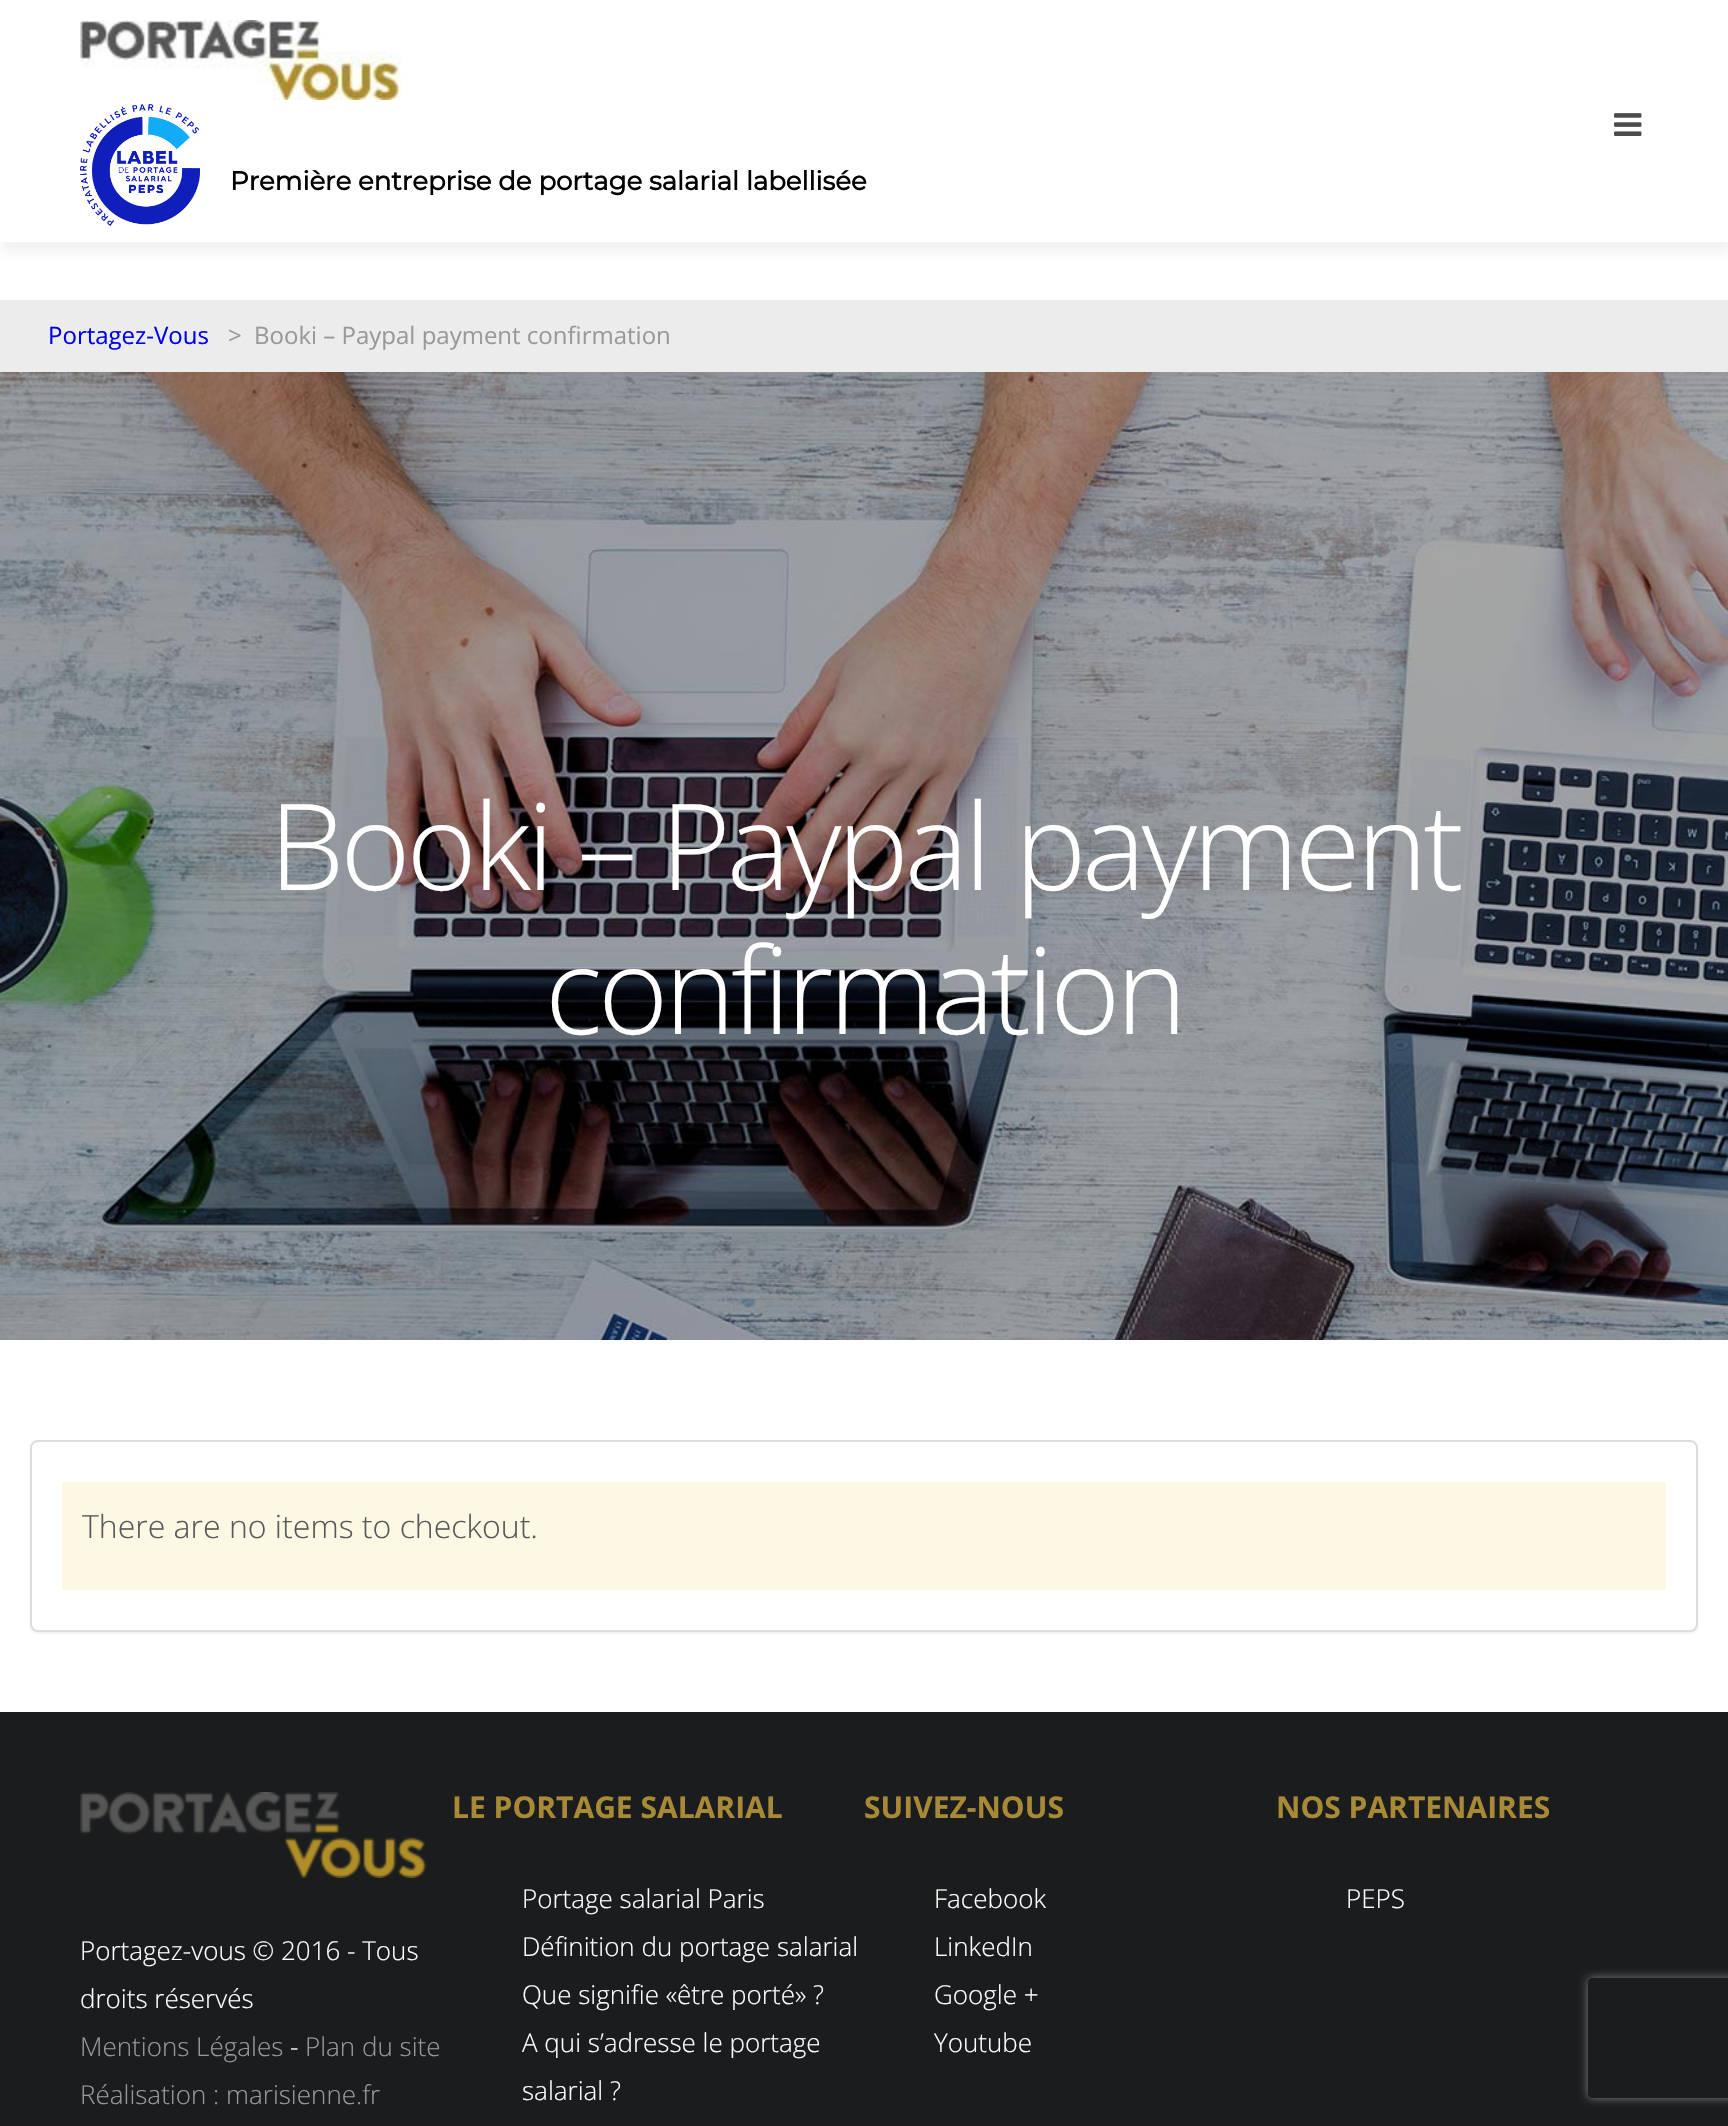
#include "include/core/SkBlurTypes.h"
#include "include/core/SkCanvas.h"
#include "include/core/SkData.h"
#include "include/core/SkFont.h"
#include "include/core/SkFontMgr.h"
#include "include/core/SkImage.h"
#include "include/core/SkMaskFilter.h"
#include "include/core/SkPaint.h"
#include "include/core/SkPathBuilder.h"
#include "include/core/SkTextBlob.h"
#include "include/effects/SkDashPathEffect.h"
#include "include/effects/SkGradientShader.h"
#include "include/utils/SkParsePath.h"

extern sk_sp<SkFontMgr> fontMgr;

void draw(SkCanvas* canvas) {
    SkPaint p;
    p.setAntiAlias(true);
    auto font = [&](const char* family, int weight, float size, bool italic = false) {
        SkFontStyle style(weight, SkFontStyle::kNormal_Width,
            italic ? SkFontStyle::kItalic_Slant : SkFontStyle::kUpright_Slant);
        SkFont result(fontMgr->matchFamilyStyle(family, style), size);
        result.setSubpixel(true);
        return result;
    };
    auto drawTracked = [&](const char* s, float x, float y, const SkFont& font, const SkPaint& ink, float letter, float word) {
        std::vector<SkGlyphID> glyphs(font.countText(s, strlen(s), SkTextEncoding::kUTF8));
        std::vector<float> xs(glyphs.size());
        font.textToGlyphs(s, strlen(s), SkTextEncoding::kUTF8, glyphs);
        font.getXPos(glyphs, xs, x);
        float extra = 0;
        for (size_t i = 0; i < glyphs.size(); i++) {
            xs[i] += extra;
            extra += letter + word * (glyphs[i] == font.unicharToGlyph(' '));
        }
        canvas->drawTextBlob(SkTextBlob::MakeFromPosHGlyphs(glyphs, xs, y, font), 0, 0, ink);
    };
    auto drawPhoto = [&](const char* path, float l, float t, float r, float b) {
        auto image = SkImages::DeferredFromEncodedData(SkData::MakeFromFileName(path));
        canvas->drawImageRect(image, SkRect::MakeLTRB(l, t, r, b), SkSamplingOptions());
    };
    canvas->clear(0xFFFFFFFF);
    canvas->save();
    canvas->clipRect(SkRect::MakeLTRB(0, 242, 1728, 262));
    p.setColor(0xFFF2F2F2);
    p.setMaskFilter(SkMaskFilter::MakeBlur(kNormal_SkBlurStyle, 5));
    canvas->drawRect(SkRect::MakeLTRB(2, 10, 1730, 252), p);
    p.setMaskFilter(nullptr);
    canvas->restore();
    drawPhoto("media/1.png", 80, 20, 402, 100);
    drawPhoto("media/2.png", 1614, 113, 1642, 136);
    drawPhoto("media/3.png", 80, 104, 200, 226);
    auto font1 = font("Montserrat", 700, 26);
    p.setColor(0xFF000000);
    canvas->drawString("Première entreprise de portage salarial labellisée", 230, 190, font1, p);
    p.setColor(0xFFECECEC);
    canvas->drawRect(SkRect::MakeLTRB(0, 300, 1728, 372), p);
    auto font2 = font("Open Sans", 400, 24);
    p.setColor(0xFF0000EE);
    canvas->drawString("Portagez-Vous", 48, 344, font2, p);
    p.setColor(0xFF999999);
    canvas->drawString(">", 228, 344, font2, p);
    canvas->drawString("Booki – Paypal payment confirmation", 254, 344, font2, p);
    drawPhoto("media/4.png", 0, 372, 1728, 1340);
    auto font3 = font("Open Sans", 300, 120);
    p.setColor(0xFFFFFFFF);
    drawTracked("Booki – Paypal payment", 269, 890, font3, p, -4, 0);
    drawTracked("confirmation", 545, 1034, font3, p, -4, 0);
    p.setColor(0x0D000000);
    p.setMaskFilter(SkMaskFilter::MakeBlur(kNormal_SkBlurStyle, 1));
    canvas->drawRoundRect(SkRect::MakeLTRB(30, 1442, 1698, 1634), 8, 8, p);
    p.setMaskFilter(nullptr);
    p.setColor(0xFFFFFFFF);
    canvas->drawRoundRect(SkRect::MakeLTRB(31, 1441, 1697, 1631), 7, 7, p);
    p.setStyle(SkPaint::kStroke_Style);
    p.setStrokeWidth(2);
    p.setColor(0xFFDDDDDD);
    canvas->drawRoundRect(SkRect::MakeLTRB(31, 1441, 1697, 1631), 7, 7, p);
    p.setStyle(SkPaint::kFill_Style);
    p.setColor(0xFFFCF8E3);
    canvas->drawRect(SkRect::MakeLTRB(62, 1482, 1666, 1590), p);
    auto font4 = font("Open Sans", 300, 32);
    p.setColor(0xFF58585B);
    canvas->drawString("There are no items to checkout.", 82, 1538, font4, p);
    p.setColor(0xFF1A1C1E);
    canvas->drawRect(SkRect::MakeLTRB(0, 1712, 1728, 2126), p);
    auto font5 = font("Open Sans", 700, 30);
    p.setColor(0xFFA88A36);
    canvas->drawString("LE PORTAGE SALARIAL", 452, 1818, font5, p);
    auto font6 = font("Open Sans", 300, 26);
    p.setColor(0xFFFFFFFF);
    {
        const struct { const char* s; float x, y; } items[] = {
            {"Portage salarial Paris", 522, 1908},
            {"Définition du portage salarial", 522, 1956},
            {"Que signifie «être porté» ?", 522, 2004},
            {"A qui s’adresse le portage", 522, 2052},
            {"salarial ?", 522, 2100},
        };
        for (auto [s, x, y] : items) {
            canvas->drawString(s, x, y, font6, p);
        }
    }
    p.setColor(0xFFA88A36);
    canvas->drawString("SUIVEZ-NOUS", 864, 1818, font5, p);
    p.setColor(0xFFFFFFFF);
    {
        const struct { const char* s; float x, y; } items[] = {
            {"Facebook", 934, 1908},
            {"LinkedIn", 934, 1956},
            {"Google +", 934, 2004},
            {"Youtube", 934, 2052},
        };
        for (auto [s, x, y] : items) {
            canvas->drawString(s, x, y, font6, p);
        }
    }
    p.setColor(0xFFA88A36);
    canvas->drawString("NOS PARTENAIRES", 1276, 1818, font5, p);
    p.setColor(0xFFFFFFFF);
    canvas->drawString("PEPS", 1346, 1908, font6, p);
    drawPhoto("media/5.png", 80, 1792, 427, 1878);
    canvas->drawString("Portagez-vous © 2016 - Tous", 80, 1960, font6, p);
    canvas->drawString("droits réservés", 80, 2008, font6, p);
    p.setColor(0xFF999999);
    canvas->drawString("Mentions Légales", 80, 2056, font6, p);
    p.setColor(0xFFFFFFFF);
    canvas->drawString("-", 290, 2056, font6, p);
    p.setColor(0xFF999999);
    canvas->drawString("Plan du site", 305, 2056, font6, p);
    canvas->drawString("Réalisation : marisienne.fr", 80, 2104, font6, p);
    canvas->save();
    canvas->clipPath(SkPathBuilder(SkPathFillType::kEvenOdd).moveTo(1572, 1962).lineTo(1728, 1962).lineTo(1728, 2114).lineTo(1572, 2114).close().moveTo(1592, 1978).lineTo(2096, 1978).cubicTo(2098, 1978, 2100, 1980, 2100, 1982).lineTo(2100, 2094).cubicTo(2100, 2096, 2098, 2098, 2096, 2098).lineTo(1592, 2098).cubicTo(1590, 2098, 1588, 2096, 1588, 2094).lineTo(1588, 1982).cubicTo(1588, 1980, 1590, 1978, 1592, 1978).close().detach(), true);
    p.setColor(0xFF808080);
    p.setMaskFilter(SkMaskFilter::MakeBlur(kNormal_SkBlurStyle, 5));
    canvas->drawRoundRect(SkRect::MakeLTRB(1588, 1978, 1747, 2098), 4, 4, p);
    p.setMaskFilter(nullptr);
    canvas->restore();
}
